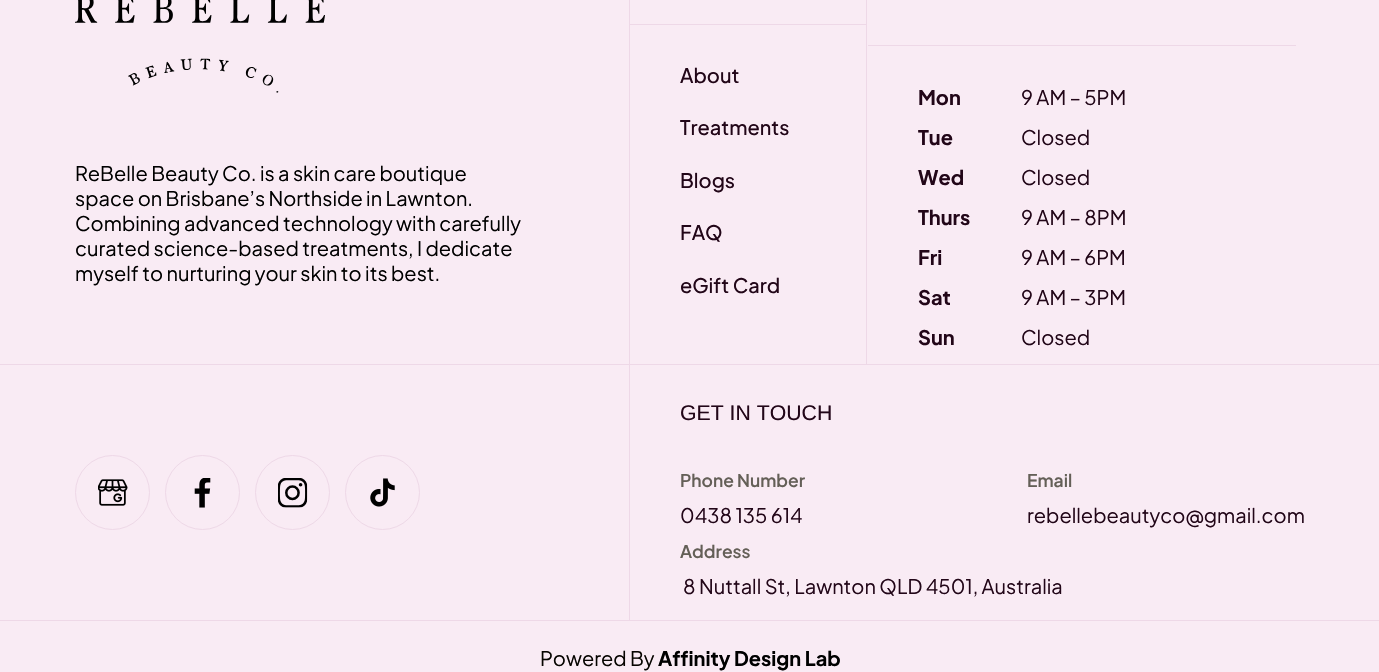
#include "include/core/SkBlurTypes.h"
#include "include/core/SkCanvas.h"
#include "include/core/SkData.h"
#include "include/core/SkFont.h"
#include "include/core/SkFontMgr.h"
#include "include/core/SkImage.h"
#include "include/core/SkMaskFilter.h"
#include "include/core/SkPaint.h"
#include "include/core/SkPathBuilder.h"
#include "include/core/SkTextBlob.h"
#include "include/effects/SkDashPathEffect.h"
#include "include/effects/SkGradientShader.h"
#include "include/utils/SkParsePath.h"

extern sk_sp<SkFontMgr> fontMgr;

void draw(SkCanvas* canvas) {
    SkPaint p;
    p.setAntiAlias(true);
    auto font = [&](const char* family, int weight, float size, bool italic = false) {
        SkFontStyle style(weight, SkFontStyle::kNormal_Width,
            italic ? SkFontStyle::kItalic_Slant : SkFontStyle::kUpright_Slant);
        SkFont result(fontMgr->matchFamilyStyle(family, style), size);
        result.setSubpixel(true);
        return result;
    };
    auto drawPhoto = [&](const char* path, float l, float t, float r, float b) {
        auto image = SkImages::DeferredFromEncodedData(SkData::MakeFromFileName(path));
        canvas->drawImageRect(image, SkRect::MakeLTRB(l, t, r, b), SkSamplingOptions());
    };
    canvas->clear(0xFFF9EBF4);
    drawPhoto("media/1.png", 75, 0, 325, 93);
    auto font1 = font("Plus Jakarta Sans", 400, 20);
    p.setColor(0xFF000000);
    {
        const struct { const char* s; float x, y; } items[] = {
            {"ReBelle Beauty Co. is a skin care boutique", 75, 181},
            {"space on Brisbane’s Northside in Lawnton.", 75, 206},
            {"Combining advanced technology with carefully", 75, 231},
            {"curated science-based treatments, I dedicate", 75, 256},
            {"myself to nurturing your skin to its best.", 75, 281},
        };
        for (auto [s, x, y] : items) {
            canvas->drawString(s, x, y, font1, p);
        }
    }
    p.setColor(0xFFEED8E7);
    canvas->drawRect(SkRect::MakeLTRB(629, 0, 630, 364), p);
    canvas->drawRect(SkRect::MakeLTRB(630, 24, 866, 25), p);
    auto font2 = font("Plus Jakarta Sans", 500, 20);
    p.setColor(0xFF220618);
    {
        const struct { const char* s; float x, y; } items[] = {
            {"About", 680, 83},
            {"Treatments", 680, 135},
            {"Blogs", 680, 188},
            {"FAQ", 680, 240},
            {"eGift Card", 680, 293},
        };
        for (auto [s, x, y] : items) {
            canvas->drawString(s, x, y, font2, p);
        }
    }
    p.setColor(0xFFEED8E7);
    canvas->drawRect(SkRect::MakeLTRB(866, 0, 867, 364), p);
    canvas->drawRect(SkRect::MakeLTRB(868, 45, 1296, 46), p);
    auto font3 = font("Plus Jakarta Sans", 700, 20);
    p.setColor(0xFF220618);
    {
        const struct { const char* s; float x, y; } items[] = {
            {"Mon", 918, 105},
            {"Tue", 918, 145},
            {"Wed", 918, 185},
            {"Thurs", 918, 225},
            {"Fri", 918, 265},
            {"Sat", 918, 305},
            {"Sun", 918, 345},
        };
        for (auto [s, x, y] : items) {
            canvas->drawString(s, x, y, font3, p);
        }
    }
    {
        const struct { const char* s; float x, y; } items[] = {
            {"9 AM – 5PM", 1021, 105},
            {"Closed", 1021, 145},
            {"Closed", 1021, 185},
            {"9 AM – 8PM", 1021, 225},
            {"9 AM – 6PM", 1021, 265},
            {"9 AM – 3PM", 1021, 305},
            {"Closed", 1021, 345},
        };
        for (auto [s, x, y] : items) {
            canvas->drawString(s, x, y, font1, p);
        }
    }
    p.setColor(0xFFEED8E7);
    canvas->drawRect(SkRect::MakeLTRB(0, 364, 1379, 365), p);
    p.setStyle(SkPaint::kStroke_Style);
    p.setStrokeWidth(1);
    canvas->drawCircle(112.5f, 492.5f, 37, p);
    drawPhoto("media/2.png", 98, 479, 128, 506);
    canvas->drawCircle(202.5f, 492.5f, 37, p);
    drawPhoto("media/3.png", 194, 478, 211, 508);
    canvas->drawCircle(292.5f, 492.5f, 37, p);
    drawPhoto("media/4.png", 278, 478, 308, 508);
    canvas->drawCircle(382.5f, 492.5f, 37, p);
    drawPhoto("media/5.png", 370, 478, 395, 507);
    p.setStyle(SkPaint::kFill_Style);
    canvas->drawRect(SkRect::MakeLTRB(629, 365, 630, 620), p);
    auto font4 = font("Liberation Sans", 400, 21.25f);
    p.setColor(0xFF220618);
    canvas->drawString("GET IN TOUCH", 680, 420, font4, p);
    auto font5 = font("Plus Jakarta Sans", 600, 17.5f);
    p.setColor(0xFF645F57);
    canvas->drawString("Phone Number", 680, 487, font5, p);
    p.setColor(0xFF220618);
    canvas->drawString("0438 135 614", 680, 523, font1, p);
    p.setColor(0xFF645F57);
    canvas->drawString("Email", 1027, 487, font5, p);
    p.setColor(0xFF220618);
    canvas->drawString("rebellebeautyco@gmail.com", 1027, 523, font1, p);
    p.setColor(0xFF645F57);
    canvas->drawString("Address", 680, 558, font5, p);
    p.setColor(0xFF220618);
    canvas->drawString("8 Nuttall St, Lawnton QLD 4501, Australia", 683, 594, font1, p);
    p.setColor(0xFFEED8E7);
    canvas->drawRect(SkRect::MakeLTRB(0, 620, 1379, 621), p);
    p.setColor(0xFF070501);
    canvas->drawString("Powered By", 540, 666, font1, p);
    p.setColor(0xFF000000);
    canvas->drawString("Affinity Design Lab", 658, 666, font3, p);
}
